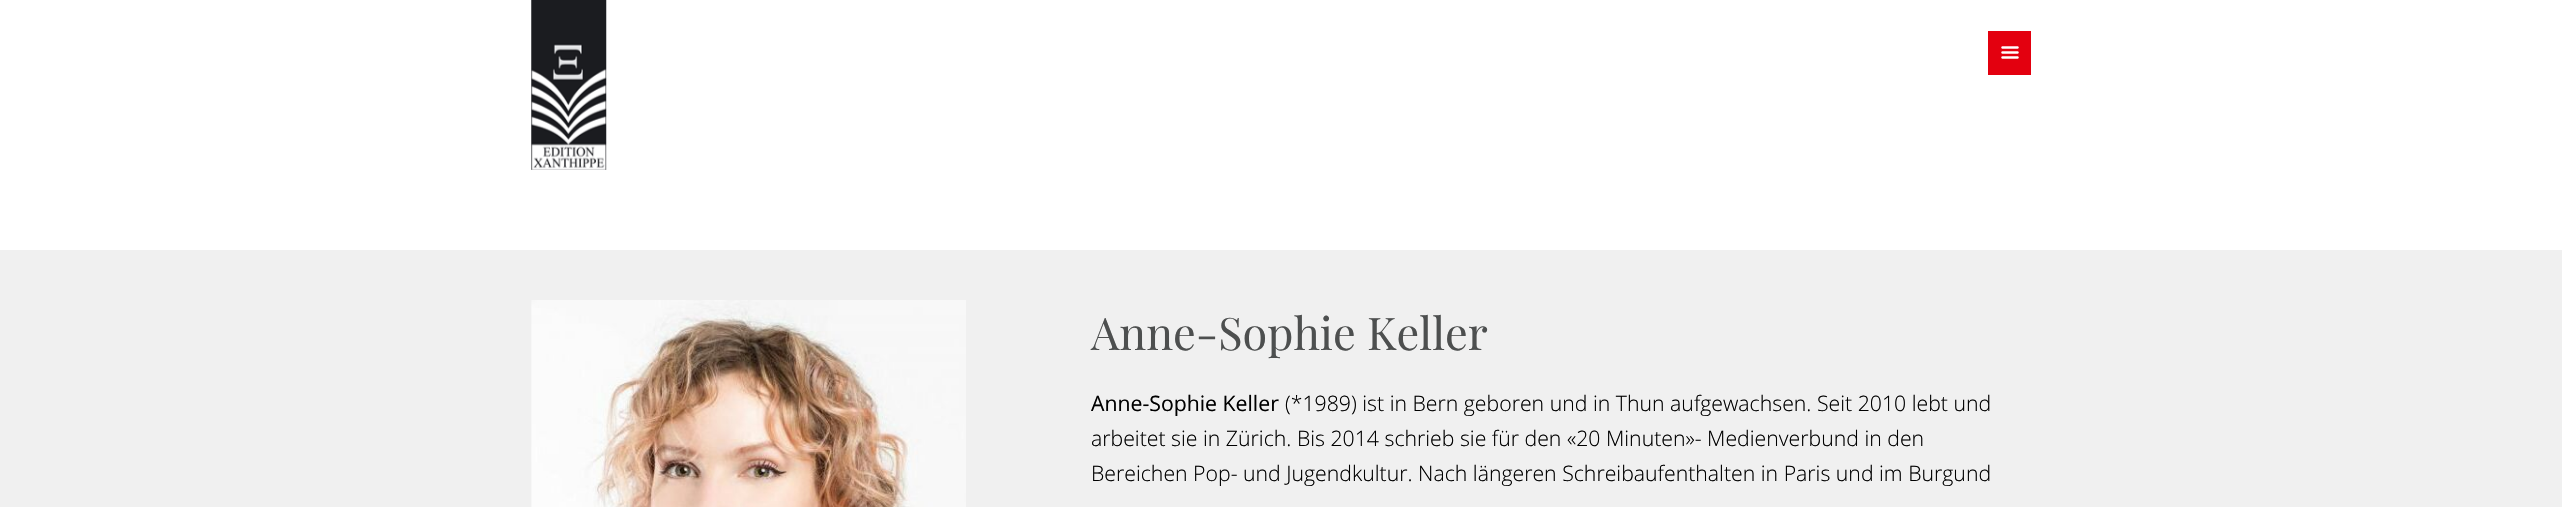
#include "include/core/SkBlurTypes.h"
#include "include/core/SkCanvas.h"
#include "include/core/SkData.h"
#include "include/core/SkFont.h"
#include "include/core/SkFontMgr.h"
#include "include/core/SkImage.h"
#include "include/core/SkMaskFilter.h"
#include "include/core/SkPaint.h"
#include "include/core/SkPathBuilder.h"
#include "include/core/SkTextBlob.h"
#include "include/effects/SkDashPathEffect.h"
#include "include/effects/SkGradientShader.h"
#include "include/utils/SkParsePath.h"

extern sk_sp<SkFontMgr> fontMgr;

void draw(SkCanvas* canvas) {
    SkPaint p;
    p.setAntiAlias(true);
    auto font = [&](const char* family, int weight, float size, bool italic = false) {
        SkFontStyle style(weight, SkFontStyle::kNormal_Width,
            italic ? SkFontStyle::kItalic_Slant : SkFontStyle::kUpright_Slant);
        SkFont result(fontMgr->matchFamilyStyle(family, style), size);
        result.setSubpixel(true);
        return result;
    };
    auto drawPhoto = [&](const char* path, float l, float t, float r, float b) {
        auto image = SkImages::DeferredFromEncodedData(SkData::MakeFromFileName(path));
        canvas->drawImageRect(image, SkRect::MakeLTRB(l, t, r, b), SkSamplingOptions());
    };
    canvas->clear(0xFFF0F0F0);
    p.setColor(0xFFFFFFFF);
    canvas->drawRect(SkRect::MakeLTRB(0, 0, 2562, 250), p);
    drawPhoto("media/1.png", 531, 0, 607, 170);
    p.setColor(0xFFE3000F);
    canvas->drawRect(SkRect::MakeLTRB(1988, 31, 2031, 75), p);
    drawPhoto("media/2.png", 2001, 46, 2019, 59);
    drawPhoto("media/3.png", 531, 300, 966, 507);
    auto font1 = font("Playfair Display", 400, 45);
    p.setColor(0xFF4D4F4F);
    canvas->drawString("Anne-Sophie Keller", 1091, 350, font1, p);
    auto font2 = font("Open Sans", 400, 21.25f);
    p.setColor(0xFF000000);
    canvas->drawString("Anne-Sophie Keller", 1091, 411, font2, p);
    auto font3 = font("Open Sans", 300, 21.25f);
    {
        const struct { const char* s; float x, y; } items[] = {
            {"(*1989) ist in Bern geboren und in Thun aufgewachsen. Seit 2010 lebt und", 1285, 411},
            {"arbeitet sie in Zürich. Bis 2014 schrieb sie für den «20 Minuten»- Medienverbund in den", 1091, 446},
            {"Bereichen Pop- und Jugendkultur. Nach längeren Schreibaufenthalten in Paris und im Burgund", 1091, 481},
        };
        for (auto [s, x, y] : items) {
            canvas->drawString(s, x, y, font3, p);
        }
    }
}
